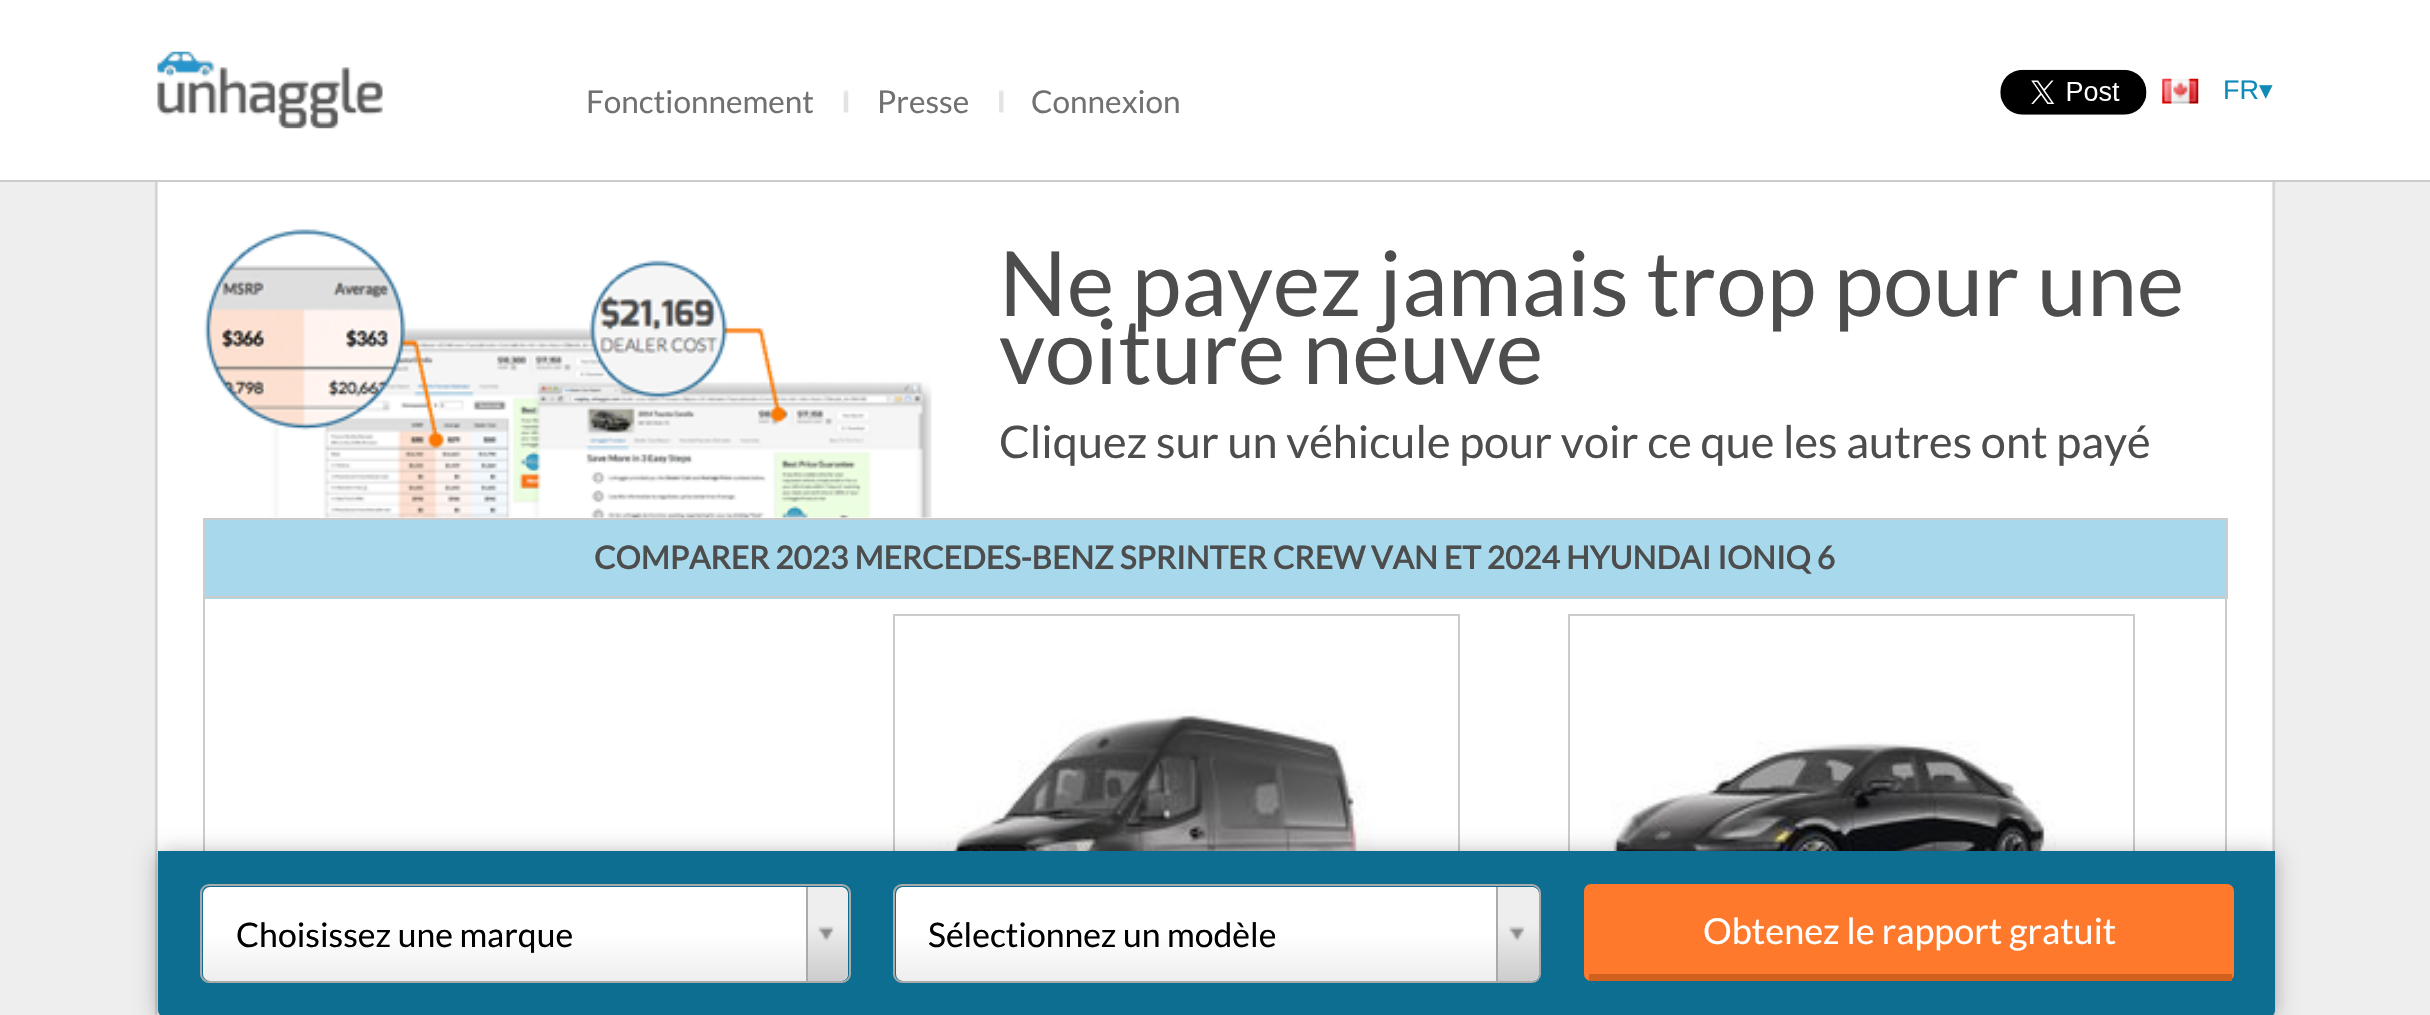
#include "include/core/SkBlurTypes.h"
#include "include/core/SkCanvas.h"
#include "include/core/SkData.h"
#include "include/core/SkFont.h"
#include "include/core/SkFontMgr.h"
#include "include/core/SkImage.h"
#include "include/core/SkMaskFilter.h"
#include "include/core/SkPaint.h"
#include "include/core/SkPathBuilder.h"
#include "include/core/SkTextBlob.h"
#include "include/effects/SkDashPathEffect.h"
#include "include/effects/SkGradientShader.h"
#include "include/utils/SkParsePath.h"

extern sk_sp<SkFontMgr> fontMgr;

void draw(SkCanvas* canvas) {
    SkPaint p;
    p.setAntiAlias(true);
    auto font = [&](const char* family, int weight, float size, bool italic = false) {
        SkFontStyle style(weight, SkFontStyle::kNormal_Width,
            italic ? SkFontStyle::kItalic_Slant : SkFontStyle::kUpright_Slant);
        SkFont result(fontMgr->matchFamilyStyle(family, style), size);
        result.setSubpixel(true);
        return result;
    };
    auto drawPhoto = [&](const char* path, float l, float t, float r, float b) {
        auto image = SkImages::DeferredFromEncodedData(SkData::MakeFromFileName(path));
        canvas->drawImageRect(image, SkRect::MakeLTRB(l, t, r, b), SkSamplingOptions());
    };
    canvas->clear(0xFFFFFFFF);
    drawPhoto("media/1.png", 157, 51, 383, 129);
    drawPhoto("media/2.png", 843, 90, 849, 113);
    auto font1 = font("Lato", 400, 31.5f);
    p.setColor(0xFF717171);
    canvas->drawString("Fonctionnement", 586, 113, font1, p);
    drawPhoto("media/3.png", 999, 90, 1004, 113);
    canvas->drawString("Presse", 877, 113, font1, p);
    canvas->drawString("Connexion", 1031, 113, font1, p);
    drawPhoto("media/4.png", 2000, 69, 2147, 115);
    drawPhoto("media/5.png", 2162, 78, 2199, 104);
    auto font2 = font("Liberation Sans", 400, 27);
    p.setColor(0xFF108AB7);
    canvas->drawString("FR", 2223, 99, font2, p);
    auto font3 = font("DejaVu Sans", 400, 27);
    canvas->drawString("▾", 2259, 99, font3, p);
    p.setColor(0xFFEEEEEE);
    canvas->drawRect(SkRect::MakeLTRB(0, 182, 2430, 1015), p);
    drawPhoto("media/6.png", 154, 182, 2276, 1015);
    p.setColor(0xFFCCCCCC);
    canvas->drawRect(SkRect::MakeLTRB(0, 180, 2430, 182), p);
    drawPhoto("media/7.png", 204, 229, 932, 518);
    auto font4 = font("Lato", 400, 90);
    p.setColor(0xFF4D4D4D);
    canvas->drawString("Ne payez jamais trop pour une", 999, 316, font4, p);
    canvas->drawString("voiture neuve", 999, 384, font4, p);
    auto font5 = font("Lato", 400, 45);
    canvas->drawString("Cliquez sur un véhicule pour voir ce que les autres ont payé", 999, 458, font5, p);
    {
        const struct { float l, t, r, b; SkColor color; } items[] = {
            {203, 518, 2228, 520, 0xFFCCCCCC},
            {205, 520, 2228, 599, 0xFFA7D8EB},
            {2225, 518, 2227, 851, 0xFFCCCCCC},
            {203, 518, 205, 851, 0xFFCCCCCC},
            {203, 596, 2228, 598, 0xFFCCCCCC},
        };
        for (auto [l, t, r, b, color] : items) {
            p.setColor(color);
            canvas->drawRect(SkRect::MakeLTRB(l, t, r, b), p);
        }
    }
    auto font6 = font("Lato", 700, 31.5f);
    p.setColor(0xFF4D4D4D);
    canvas->drawString("COMPARER 2023 MERCEDES-BENZ SPRINTER CREW VAN ET 2024 HYUNDAI IONIQ 6", 594, 569, font6, p);
    p.setStyle(SkPaint::kStroke_Style);
    p.setStrokeWidth(2);
    p.setColor(0xFFCCCCCC);
    canvas->drawRect(SkRect::MakeLTRB(894, 615, 1459, 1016), p);
    drawPhoto("media/8.png", 930, 709, 1375, 851);
    canvas->drawRect(SkRect::MakeLTRB(1569, 615, 2134, 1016), p);
    drawPhoto("media/9.png", 1601, 740, 2056, 851);
    p.setStyle(SkPaint::kFill_Style);
    p.setColor(0x4D000000);
    p.setMaskFilter(SkMaskFilter::MakeBlur(kNormal_SkBlurStyle, 11));
    canvas->drawRoundRect(SkRect::MakeLTRB(158, 853, 2275, 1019), 7, 7, p);
    p.setMaskFilter(nullptr);
    p.setColor(0xFF0D6E92);
    canvas->drawPath(SkPathBuilder().moveTo(158, 851).lineTo(2275, 851).lineTo(2275, 1010).cubicTo(2275, 1014, 2272, 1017, 2268, 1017).lineTo(165, 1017).cubicTo(161, 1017, 158, 1014, 158, 1010).close().detach(), p);
    {
        const SkColor colors[] = {0xFFEEEEEE, 0xFFFFFFFF};
        const float stops[] = {0, 0.5f};
        const SkPoint ends[] = {{203, 981}, {203, 887}};
        p.setShader(SkGradientShader::MakeLinear(ends, colors, stops, 2, SkTileMode::kClamp));
        p.setAlpha(255);
    }
    canvas->drawRoundRect(SkRect::MakeLTRB(203, 887, 848, 981), 7, 7, p);
    p.setStyle(SkPaint::kStroke_Style);
    p.setShader(nullptr);
    p.setColor(0xFFAAAAAA);
    canvas->drawRoundRect(SkRect::MakeLTRB(201, 885, 850, 982), 8, 8, p);
    auto font7 = font("Lato", 400, 33.75f);
    p.setStyle(SkPaint::kFill_Style);
    p.setColor(0xFF000000);
    canvas->drawString("Choisissez une marque", 236, 947, font7, p);
    {
        const SkColor colors[] = {0xFFCCCCCC, 0xFFEEEEEE};
        const float stops[] = {0, 0.6f};
        const SkPoint ends[] = {{808, 981}, {808, 887}};
        p.setShader(SkGradientShader::MakeLinear(ends, colors, stops, 2, SkTileMode::kClamp));
        p.setAlpha(255);
    }
    canvas->drawPath(SkPathBuilder().moveTo(806, 887).lineTo(839, 887).cubicTo(844, 887, 848, 891, 848, 896).lineTo(848, 972).cubicTo(848, 977, 844, 981, 839, 981).lineTo(806, 981).close().detach(), p);
    p.setShader(nullptr);
    p.setColor(0xFFAAAAAA);
    canvas->drawRect(SkRect::MakeLTRB(806, 887, 808, 981), p);
    drawPhoto("media/10.png", 818, 926, 834, 941);
    {
        const SkColor colors[] = {0xFFEEEEEE, 0xFFFFFFFF};
        const float stops[] = {0, 0.5f};
        const SkPoint ends[] = {{896, 981}, {896, 887}};
        p.setShader(SkGradientShader::MakeLinear(ends, colors, stops, 2, SkTileMode::kClamp));
        p.setAlpha(255);
    }
    canvas->drawRoundRect(SkRect::MakeLTRB(896, 887, 1539, 981), 7, 7, p);
    p.setStyle(SkPaint::kStroke_Style);
    p.setShader(nullptr);
    p.setColor(0xFFAAAAAA);
    canvas->drawRoundRect(SkRect::MakeLTRB(894, 885, 1540, 982), 8, 8, p);
    p.setStyle(SkPaint::kFill_Style);
    p.setColor(0xFF000000);
    canvas->drawString("Sélectionnez un modèle", 928, 947, font7, p);
    {
        const SkColor colors[] = {0xFFCCCCCC, 0xFFEEEEEE};
        const float stops[] = {0, 0.6f};
        const SkPoint ends[] = {{1499, 981}, {1499, 887}};
        p.setShader(SkGradientShader::MakeLinear(ends, colors, stops, 2, SkTileMode::kClamp));
        p.setAlpha(255);
    }
    canvas->drawPath(SkPathBuilder().moveTo(1496, 887).lineTo(1530, 887).cubicTo(1535, 887, 1539, 891, 1539, 896).lineTo(1539, 972).cubicTo(1539, 977, 1535, 981, 1530, 981).lineTo(1496, 981).close().detach(), p);
    p.setShader(nullptr);
    p.setColor(0xFFAAAAAA);
    canvas->drawRect(SkRect::MakeLTRB(1496, 887, 1498, 981), p);
    drawPhoto("media/11.png", 1509, 926, 1525, 941);
    p.setColor(0xFFFF792C);
    canvas->drawRoundRect(SkRect::MakeLTRB(1584, 884, 2234, 981), 7, 7, p);
    p.setColor(0xFFD1601E);
    canvas->drawRect(SkRect::MakeLTRB(1589, 974, 2232, 981), p);
    auto font8 = font("Lato", 400, 36);
    p.setColor(0xFFFFFFFF);
    canvas->drawString("Obtenez le rapport gratuit", 1703, 944, font8, p);
}
